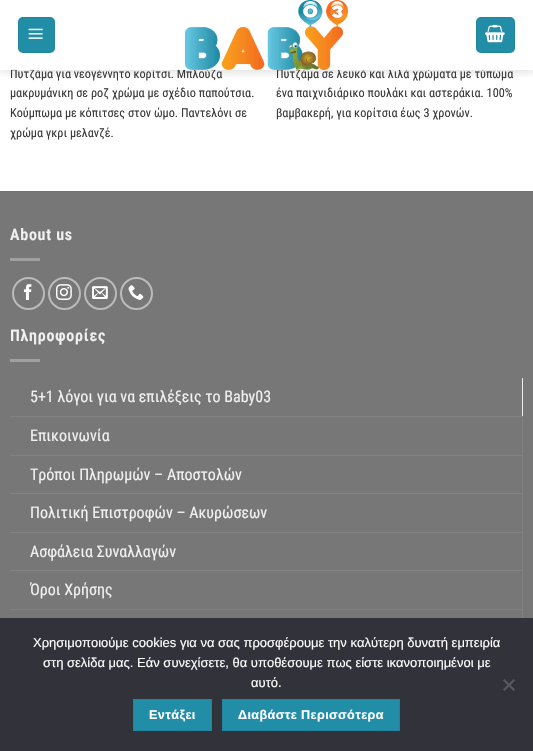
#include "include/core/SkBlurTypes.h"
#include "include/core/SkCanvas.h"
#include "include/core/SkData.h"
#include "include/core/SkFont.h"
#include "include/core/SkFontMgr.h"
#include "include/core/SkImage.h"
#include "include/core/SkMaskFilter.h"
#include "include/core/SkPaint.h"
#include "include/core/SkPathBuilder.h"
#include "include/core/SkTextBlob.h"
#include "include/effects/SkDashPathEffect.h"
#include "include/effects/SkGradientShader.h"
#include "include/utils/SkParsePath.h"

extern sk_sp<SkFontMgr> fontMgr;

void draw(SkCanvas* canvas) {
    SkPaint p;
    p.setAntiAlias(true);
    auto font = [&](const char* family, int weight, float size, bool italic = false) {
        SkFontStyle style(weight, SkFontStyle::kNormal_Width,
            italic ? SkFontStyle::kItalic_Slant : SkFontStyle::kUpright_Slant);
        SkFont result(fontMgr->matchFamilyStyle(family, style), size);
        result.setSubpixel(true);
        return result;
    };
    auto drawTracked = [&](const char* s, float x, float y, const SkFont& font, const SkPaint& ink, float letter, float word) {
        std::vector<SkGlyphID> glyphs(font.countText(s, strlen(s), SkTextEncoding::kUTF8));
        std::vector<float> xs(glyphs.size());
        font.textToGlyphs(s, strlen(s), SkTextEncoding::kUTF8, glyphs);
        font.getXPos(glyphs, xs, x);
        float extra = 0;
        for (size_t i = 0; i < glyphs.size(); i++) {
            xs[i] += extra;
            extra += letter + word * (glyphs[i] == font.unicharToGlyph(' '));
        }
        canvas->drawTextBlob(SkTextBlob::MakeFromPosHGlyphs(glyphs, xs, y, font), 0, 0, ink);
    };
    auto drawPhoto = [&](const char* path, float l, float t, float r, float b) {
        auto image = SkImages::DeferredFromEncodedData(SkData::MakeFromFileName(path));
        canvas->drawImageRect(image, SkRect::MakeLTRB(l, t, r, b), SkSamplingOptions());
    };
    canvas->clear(0xFFFFFFFF);
    canvas->save();
    canvas->clipRect(SkRect::MakeLTRB(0, 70, 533, 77));
    p.setColor(0x26000000);
    p.setMaskFilter(SkMaskFilter::MakeBlur(kNormal_SkBlurStyle, 5));
    canvas->drawRect(SkRect::MakeLTRB(1, 1, 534, 71), p);
    p.setMaskFilter(nullptr);
    canvas->restore();
    p.setColor(0xFF218DA7);
    canvas->drawRoundRect(SkRect::MakeLTRB(18, 17, 55, 53), 5, 5, p);
    p.setStyle(SkPaint::kStroke_Style);
    p.setStrokeWidth(1);
    p.setColor(0x0D000000);
    canvas->drawRect(SkRect::MakeLTRB(18.5f, 17.5f, 54.5f, 52.5f), p);
    drawPhoto("media/1.png", 28, 28, 43, 39);
    auto font1 = font("Roboto Condensed", 400, 12.25f);
    p.setStyle(SkPaint::kFill_Style);
    p.setColor(0xFF3A3A3A);
    canvas->drawString("Πυτζάμα για νεογέννητο κορίτσι. Μπλούζα", 10, 78, font1, p);
    canvas->drawString("Πυτζάμα σε λευκό και λιλά χρώματα με τύπωμα", 276, 78, font1, p);
    p.setColor(0xE6FFFFFF);
    canvas->drawRect(SkRect::MakeLTRB(10, 68, 484, 70), p);
    drawPhoto("media/2.png", 184, 0, 348, 70);
    p.setColor(0xFF218DA7);
    canvas->drawRoundRect(SkRect::MakeLTRB(476, 17, 515, 53), 5, 5, p);
    p.setStyle(SkPaint::kStroke_Style);
    p.setColor(0x0D000000);
    canvas->drawRect(SkRect::MakeLTRB(476.5f, 17.5f, 514.5f, 52.5f), p);
    drawPhoto("media/3.png", 485, 24, 505, 43);
    p.setStyle(SkPaint::kFill_Style);
    p.setColor(0xFF3A3A3A);
    {
        const struct { const char* s; float x, y; } items[] = {
            {"μακρυμάνικη σε ροζ χρώμα με σχέδιο παπούτσια.", 10, 97},
            {"Κούμπωμα με κόπιτσες στον ώμο. Παντελόνι σε", 10, 117},
            {"χρώμα γκρι μελανζέ.", 10, 137},
            {"ένα παιχνιδιάρικο πουλάκι και αστεράκια. 100%", 276, 97},
            {"βαμβακερή, για κορίτσια έως 3 χρονών.", 276, 117},
        };
        for (auto [s, x, y] : items) {
            canvas->drawString(s, x, y, font1, p);
        }
    }
    p.setColor(0xFF777777);
    canvas->drawRect(SkRect::MakeLTRB(0, 192, 533, 618), p);
    p.setColor(0xFF717171);
    canvas->drawRect(SkRect::MakeLTRB(0, 191, 533, 192), p);
    auto font2 = font("Roboto Condensed", 600, 16);
    p.setColor(0xFFF1F1F1);
    drawTracked("About us", 10, 240, font2, p, 0.75f, 0);
    p.setColor(0xFFA0A0A0);
    canvas->drawRect(SkRect::MakeLTRB(10, 258, 40, 261), p);
    p.setStyle(SkPaint::kStroke_Style);
    p.setStrokeWidth(2);
    p.setColor(0xFFBBBBBB);
    canvas->drawCircle(28.5f, 293.5f, 15.5f, p);
    drawPhoto("media/4.png", 23, 284, 32, 300);
    canvas->drawCircle(64.5f, 293.5f, 15.5f, p);
    drawPhoto("media/5.png", 56, 284, 72, 300);
    canvas->drawCircle(100.5f, 293.5f, 15.5f, p);
    drawPhoto("media/6.png", 92, 286, 108, 299);
    canvas->drawCircle(136.5f, 293.5f, 15.5f, p);
    drawPhoto("media/7.png", 128, 285, 144, 300);
    p.setStyle(SkPaint::kFill_Style);
    p.setColor(0xFFF1F1F1);
    drawTracked("Πληροφορίες", 10, 341, font2, p, 0.75f, 0);
    p.setColor(0xFFA0A0A0);
    canvas->drawRect(SkRect::MakeLTRB(10, 359, 40, 362), p);
    p.setColor(0xFFECECEC);
    canvas->drawRect(SkRect::MakeLTRB(522, 378, 523, 416), p);
    auto font3 = font("Roboto Condensed", 400, 16);
    p.setColor(0xFFF1F1F1);
    canvas->drawString("5+1 λόγοι για να επιλέξεις το Baby03", 30, 402, font3, p);
    p.setColor(0xFF828282);
    canvas->drawPath(SkPathBuilder().moveTo(10, 416).lineTo(523, 416).lineTo(522, 417).lineTo(10, 417).close().detach(), p);
    p.setColor(0x14FFFFFF);
    canvas->drawPath(SkPathBuilder().moveTo(523, 416).lineTo(523, 455).lineTo(522, 455).lineTo(522, 417).close().detach(), p);
    p.setColor(0xFFF1F1F1);
    canvas->drawString("Επικοινωνία", 30, 441, font3, p);
    p.setColor(0xFF828282);
    canvas->drawPath(SkPathBuilder().moveTo(10, 455).lineTo(523, 455).lineTo(522, 456).lineTo(10, 456).close().detach(), p);
    p.setColor(0x14FFFFFF);
    canvas->drawPath(SkPathBuilder().moveTo(523, 455).lineTo(523, 493).lineTo(522, 493).lineTo(522, 456).close().detach(), p);
    p.setColor(0xFFF1F1F1);
    canvas->drawString("Τρόποι Πληρωμών – Αποστολών", 30, 480, font3, p);
    p.setColor(0xFF828282);
    canvas->drawPath(SkPathBuilder().moveTo(10, 493).lineTo(523, 493).lineTo(522, 494).lineTo(10, 494).close().detach(), p);
    p.setColor(0x14FFFFFF);
    canvas->drawPath(SkPathBuilder().moveTo(523, 493).lineTo(523, 532).lineTo(522, 532).lineTo(522, 494).close().detach(), p);
    p.setColor(0xFFF1F1F1);
    canvas->drawString("Πολιτική Επιστροφών – Ακυρώσεων", 30, 518, font3, p);
    p.setColor(0xFF828282);
    canvas->drawPath(SkPathBuilder().moveTo(10, 532).lineTo(523, 532).lineTo(522, 533).lineTo(10, 533).close().detach(), p);
    p.setColor(0x14FFFFFF);
    canvas->drawPath(SkPathBuilder().moveTo(523, 532).lineTo(523, 570).lineTo(522, 570).lineTo(522, 533).close().detach(), p);
    p.setColor(0xFFF1F1F1);
    canvas->drawString("Ασφάλεια Συναλλαγών", 30, 557, font3, p);
    p.setColor(0xFF828282);
    canvas->drawPath(SkPathBuilder().moveTo(10, 570).lineTo(523, 570).lineTo(522, 571).lineTo(10, 571).close().detach(), p);
    p.setColor(0x14FFFFFF);
    canvas->drawPath(SkPathBuilder().moveTo(523, 570).lineTo(523, 609).lineTo(522, 609).lineTo(522, 571).close().detach(), p);
    p.setColor(0xFFF1F1F1);
    canvas->drawString("Όροι Χρήσης", 30, 595, font3, p);
    p.setColor(0xFF828282);
    canvas->drawPath(SkPathBuilder().moveTo(10, 609).lineTo(523, 609).lineTo(522, 610).lineTo(10, 610).close().detach(), p);
    p.setColor(0x14FFFFFF);
    canvas->drawPath(SkPathBuilder().moveTo(523, 609).lineTo(523, 648).lineTo(522, 648).lineTo(522, 610).close().detach(), p);
    p.setColor(0xFF32323A);
    canvas->drawRect(SkRect::MakeLTRB(0, 618, 533, 751), p);
    auto font4 = font("Liberation Sans", 400, 13);
    p.setColor(0xFFFFFFFF);
    {
        const struct { const char* s; float x, y; } items[] = {
            {"Χρησιμοποιούμε cookies για να σας προσφέρουμε την καλύτερη δυνατή εμπειρία", 33, 647},
            {"στη σελίδα μας. Εάν συνεχίσετε, θα υποθέσουμε πως είστε ικανοποιημένοι με", 43, 667},
            {"αυτό.", 251, 687},
        };
        for (auto [s, x, y] : items) {
            canvas->drawString(s, x, y, font4, p);
        }
    }
    p.setColor(0xFF59595D);
    canvas->drawPath(SkPathBuilder().moveTo(513.5f, 679).lineTo(515, 680.5f).lineTo(504.5f, 691).lineTo(503, 689.5f).close().detach(), p);
    canvas->drawPath(SkPathBuilder().moveTo(503, 680.5f).lineTo(504.5f, 679).lineTo(515, 689.5f).lineTo(513.5f, 691).close().detach(), p);
    p.setColor(0xFF218DA7);
    canvas->drawRect(SkRect::MakeLTRB(133.5f, 699.5f, 211.5f, 730.5f), p);
    p.setStyle(SkPaint::kStroke_Style);
    p.setStrokeWidth(1);
    p.setColor(0xFF1F869F);
    canvas->drawRect(SkRect::MakeLTRB(133.5f, 699.5f, 211.5f, 730.5f), p);
    auto font5 = font("Liberation Sans", 700, 12.6f);
    p.setStyle(SkPaint::kFill_Style);
    p.setColor(0xFFFFFFFF);
    drawTracked("Εντάξει", 149, 719, font5, p, 0.4f, 0);
    p.setColor(0xFF218DA7);
    canvas->drawRect(SkRect::MakeLTRB(222.5f, 699.5f, 399.5f, 730.5f), p);
    p.setStyle(SkPaint::kStroke_Style);
    p.setColor(0xFF1F869F);
    canvas->drawRect(SkRect::MakeLTRB(222.5f, 699.5f, 399.5f, 730.5f), p);
    p.setStyle(SkPaint::kFill_Style);
    p.setColor(0xFFFFFFFF);
    drawTracked("Διαβάστε Περισσότερα", 238, 719, font5, p, 0.4f, 0);
}
